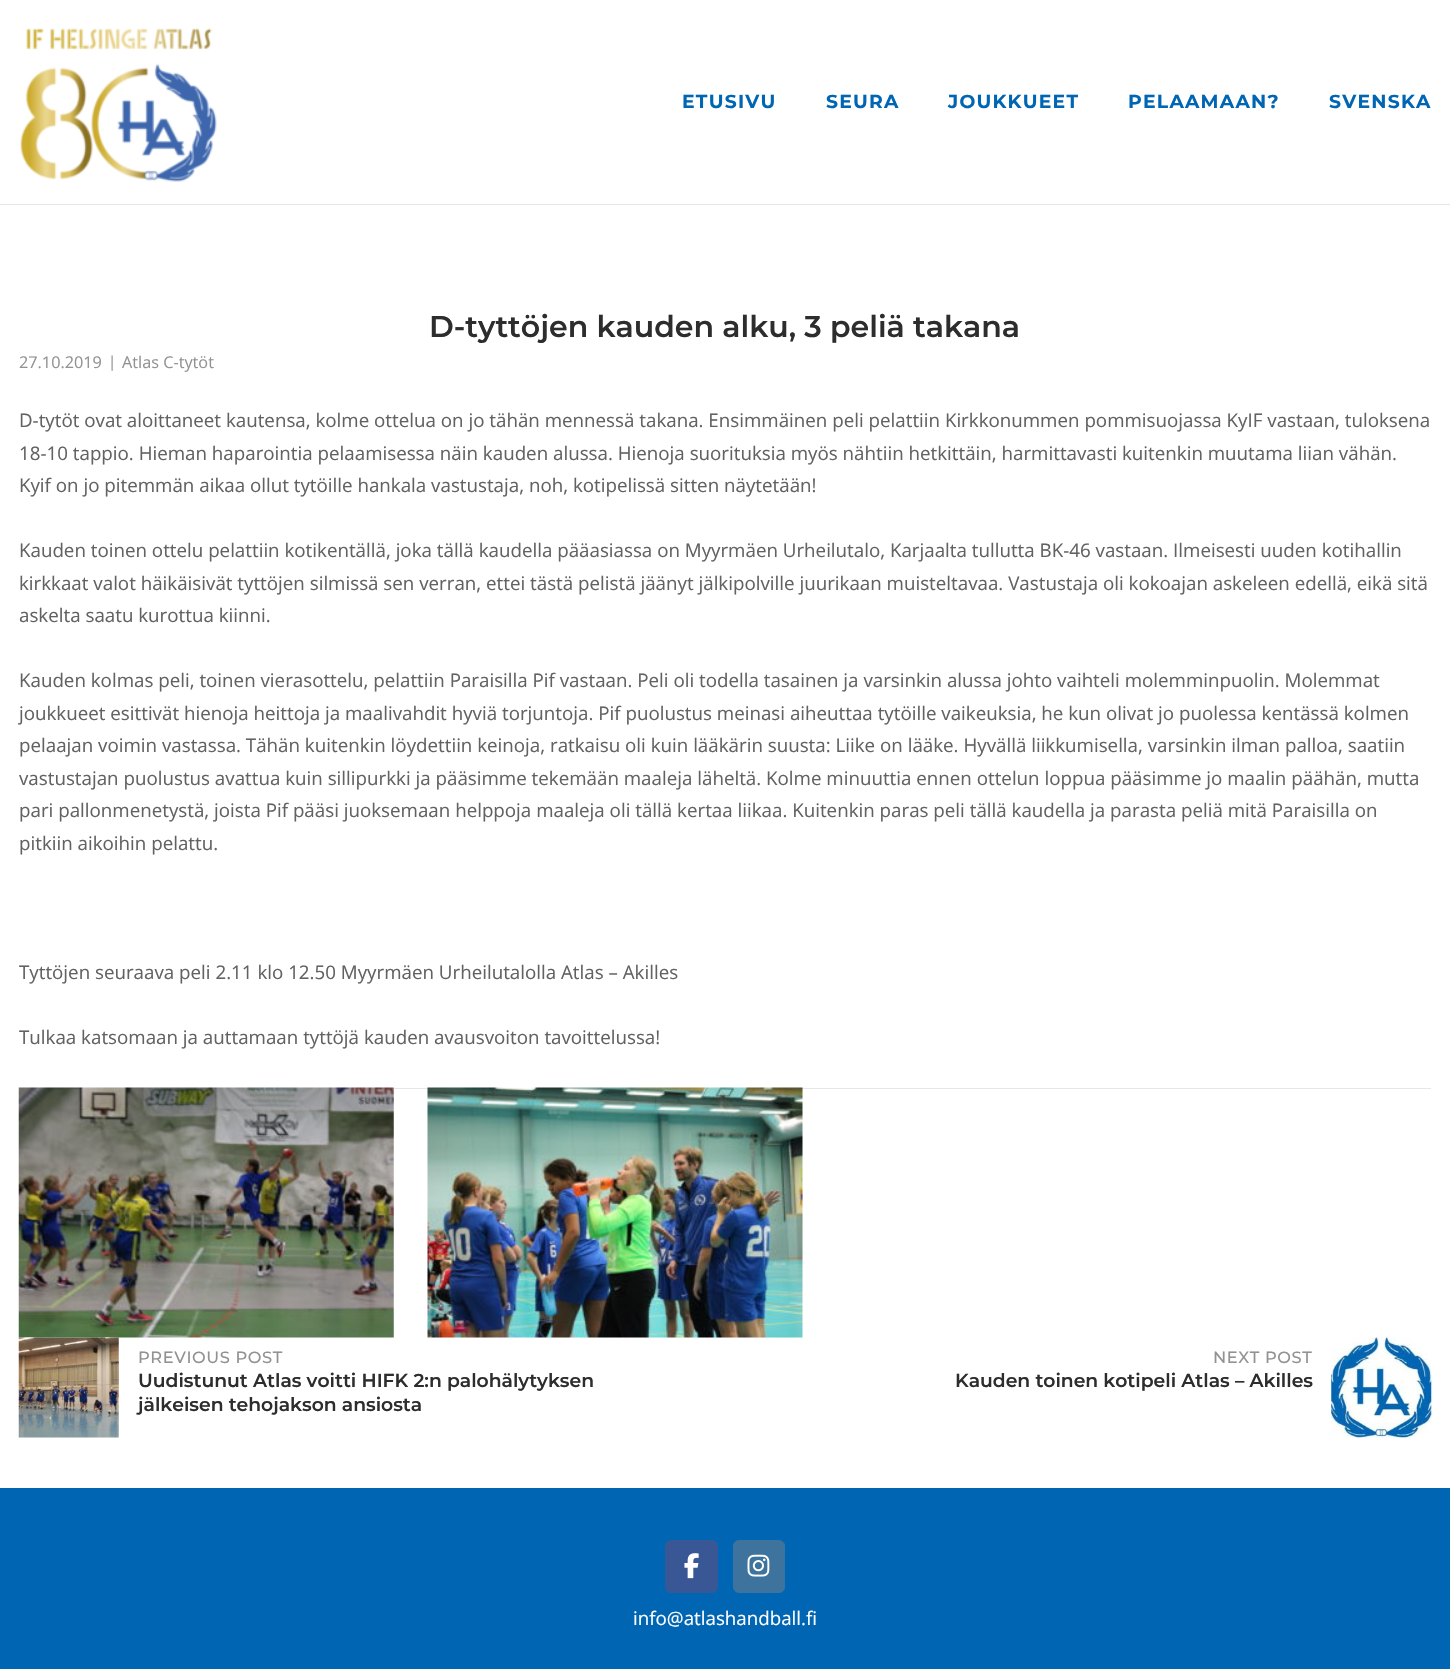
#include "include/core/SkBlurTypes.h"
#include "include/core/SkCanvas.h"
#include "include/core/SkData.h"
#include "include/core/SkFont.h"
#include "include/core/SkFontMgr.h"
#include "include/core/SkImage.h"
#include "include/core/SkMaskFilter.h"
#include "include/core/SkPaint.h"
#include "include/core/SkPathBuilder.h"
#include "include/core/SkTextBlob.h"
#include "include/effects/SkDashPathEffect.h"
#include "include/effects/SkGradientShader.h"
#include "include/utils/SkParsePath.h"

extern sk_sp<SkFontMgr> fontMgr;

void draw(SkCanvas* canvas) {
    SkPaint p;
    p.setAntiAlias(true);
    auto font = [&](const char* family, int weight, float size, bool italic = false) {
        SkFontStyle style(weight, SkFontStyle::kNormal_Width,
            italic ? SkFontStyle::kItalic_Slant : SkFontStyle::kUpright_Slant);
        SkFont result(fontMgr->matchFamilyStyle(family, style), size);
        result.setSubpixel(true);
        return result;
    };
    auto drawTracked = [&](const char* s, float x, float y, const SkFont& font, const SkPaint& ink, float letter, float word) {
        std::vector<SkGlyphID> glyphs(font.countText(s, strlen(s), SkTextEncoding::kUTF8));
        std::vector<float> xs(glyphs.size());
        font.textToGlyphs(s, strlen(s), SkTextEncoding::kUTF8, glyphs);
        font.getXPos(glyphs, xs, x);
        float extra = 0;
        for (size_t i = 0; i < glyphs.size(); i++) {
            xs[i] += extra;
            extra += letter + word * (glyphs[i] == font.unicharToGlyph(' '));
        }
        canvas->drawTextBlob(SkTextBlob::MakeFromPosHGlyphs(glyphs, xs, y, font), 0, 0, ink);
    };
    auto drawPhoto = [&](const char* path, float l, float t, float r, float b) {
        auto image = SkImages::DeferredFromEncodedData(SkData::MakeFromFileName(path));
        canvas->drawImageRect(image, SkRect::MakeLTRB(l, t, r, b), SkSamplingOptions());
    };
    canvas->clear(0xFFFFFFFF);
    p.setColor(0xFFE6E6E6);
    canvas->drawRect(SkRect::MakeLTRB(0, 204, 1450, 205), p);
    drawPhoto("media/1.png", 20, 28, 217, 182);
    auto font1 = font("Montserrat", 700, 18.75f);
    p.setColor(0xFF0066B3);
    {
        const struct { const char* s; float x, y; } items[] = {
            {"ETUSIVU", 682, 108},
            {"SEURA", 826, 108},
            {"JOUKKUEET", 948, 108},
            {"PELAAMAAN?", 1128, 108},
            {"SVENSKA", 1329, 108},
        };
        for (auto [s, x, y] : items) {
            drawTracked(s, x, y, font1, p, 1.25f, 0);
        }
    }
    auto font2 = font("Montserrat", 600, 30);
    p.setColor(0xFF2D2D2D);
    canvas->drawString("D-tyttöjen kauden alku, 3 peliä takana", 429, 337, font2, p);
    auto font3 = font("Open Sans", 400, 16.25f);
    p.setColor(0xFF929292);
    canvas->drawString("27.10.2019", 19, 368, font3, p);
    auto font4 = font("Open Sans", 400, 15);
    canvas->drawString("|", 108, 367, font4, p);
    canvas->drawString("Atlas C-tytöt", 122, 368, font3, p);
    auto font5 = font("Open Sans", 400, 18.75f);
    p.setColor(0xFF626262);
    {
        const struct { const char* s; float x, y; } items[] = {
            {"D-tytöt ovat aloittaneet kautensa, kolme ottelua on jo tähän mennessä takana. Ensimmäinen peli pelattiin Kirkkonummen pommisuojassa KyIF vastaan, tuloksena", 19, 427},
            {"18-10 tappio. Hieman haparointia pelaamisessa näin kauden alussa. Hienoja suorituksia myös nähtiin hetkittäin, harmittavasti kuitenkin muutama liian vähän.", 19, 460},
            {"Kyif on jo pitemmän aikaa ollut tytöille hankala vastustaja, noh, kotipelissä sitten näytetään!", 19, 492},
            {"Kauden toinen ottelu pelattiin kotikentällä, joka tällä kaudella pääasiassa on Myyrmäen Urheilutalo, Karjaalta tullutta BK-46 vastaan. Ilmeisesti uuden kotihallin", 19, 557},
            {"kirkkaat valot häikäisivät tyttöjen silmissä sen verran, ettei tästä pelistä jäänyt jälkipolville juurikaan muisteltavaa. Vastustaja oli kokoajan askeleen edellä, eikä sitä", 19, 590},
            {"askelta saatu kurottua kiinni.", 19, 622},
            {"Kauden kolmas peli, toinen vierasottelu, pelattiin Paraisilla Pif vastaan. Peli oli todella tasainen ja varsinkin alussa johto vaihteli molemminpuolin. Molemmat", 19, 687},
            {"joukkueet esittivät hienoja heittoja ja maalivahdit hyviä torjuntoja. Pif puolustus meinasi aiheuttaa tytöille vaikeuksia, he kun olivat jo puolessa kentässä kolmen", 19, 720},
            {"pelaajan voimin vastassa. Tähän kuitenkin löydettiin keinoja, ratkaisu oli kuin lääkärin suusta: Liike on lääke. Hyvällä liikkumisella, varsinkin ilman palloa, saatiin", 19, 752},
            {"vastustajan puolustus avattua kuin sillipurkki ja pääsimme tekemään maaleja läheltä. Kolme minuuttia ennen ottelun loppua pääsimme jo maalin päähän, mutta", 19, 785},
            {"pari pallonmenetystä, joista Pif pääsi juoksemaan helppoja maaleja oli tällä kertaa liikaa. Kuitenkin paras peli tällä kaudella ja parasta peliä mitä Paraisilla on", 19, 817},
            {"pitkiin aikoihin pelattu.", 19, 850},
            {"Tyttöjen seuraava peli 2.11 klo 12.50 Myyrmäen Urheilutalolla Atlas – Akilles", 19, 979},
            {"Tulkaa katsomaan ja auttamaan tyttöjä kauden avausvoiton tavoittelussa!", 19, 1044},
        };
        for (auto [s, x, y] : items) {
            canvas->drawString(s, x, y, font5, p);
        }
    }
    p.setColor(0xFFE6E6E6);
    canvas->drawRect(SkRect::MakeLTRB(393, 1088, 1431, 1089), p);
    drawPhoto("media/2.png", 18, 1087, 394, 1338);
    drawPhoto("media/3.png", 427, 1087, 803, 1338);
    drawPhoto("media/4.png", 18, 1337, 119, 1438);
    auto font6 = font("Montserrat", 500, 16.25f);
    p.setColor(0xFF929292);
    drawTracked("PREVIOUS POST", 138, 1363, font6, p, 0.6f, 0);
    auto font7 = font("Montserrat", 600, 18.75f);
    p.setColor(0xFF2D2D2D);
    canvas->drawString("Uudistunut Atlas voitti HIFK 2:n palohälytyksen", 138, 1387, font7, p);
    canvas->drawString("jälkeisen tehojakson ansiosta", 138, 1411, font7, p);
    p.setColor(0xFF929292);
    drawTracked("NEXT POST", 1213, 1363, font6, p, 0.6f, 0);
    p.setColor(0xFF2D2D2D);
    canvas->drawString("Kauden toinen kotipeli Atlas – Akilles", 955, 1387, font7, p);
    drawPhoto("media/5.png", 1331, 1337, 1432, 1438);
    p.setColor(0xFF0066B3);
    canvas->drawRect(SkRect::MakeLTRB(0, 1488, 1450, 1669), p);
    p.setColor(0xFF3A5795);
    canvas->drawRoundRect(SkRect::MakeLTRB(665.5f, 1540.5f, 717.5f, 1592.5f), 5.5f, 5.5f, p);
    p.setStyle(SkPaint::kStroke_Style);
    p.setStrokeWidth(1);
    canvas->drawRoundRect(SkRect::MakeLTRB(665.5f, 1540.5f, 717.5f, 1592.5f), 5.5f, 5.5f, p);
    drawPhoto("media/6.png", 684, 1553, 699, 1579);
    p.setStyle(SkPaint::kFill_Style);
    p.setColor(0xFF3D739C);
    canvas->drawRoundRect(SkRect::MakeLTRB(733.5f, 1540.5f, 784.5f, 1592.5f), 5.5f, 5.5f, p);
    p.setStyle(SkPaint::kStroke_Style);
    canvas->drawRoundRect(SkRect::MakeLTRB(733.5f, 1540.5f, 784.5f, 1592.5f), 5.5f, 5.5f, p);
    drawPhoto("media/7.png", 747, 1554, 770, 1577);
    p.setStyle(SkPaint::kFill_Style);
    p.setColor(0xFFFFFFFF);
    canvas->drawString("info@atlashandball.fi", 633, 1625, font5, p);
}
